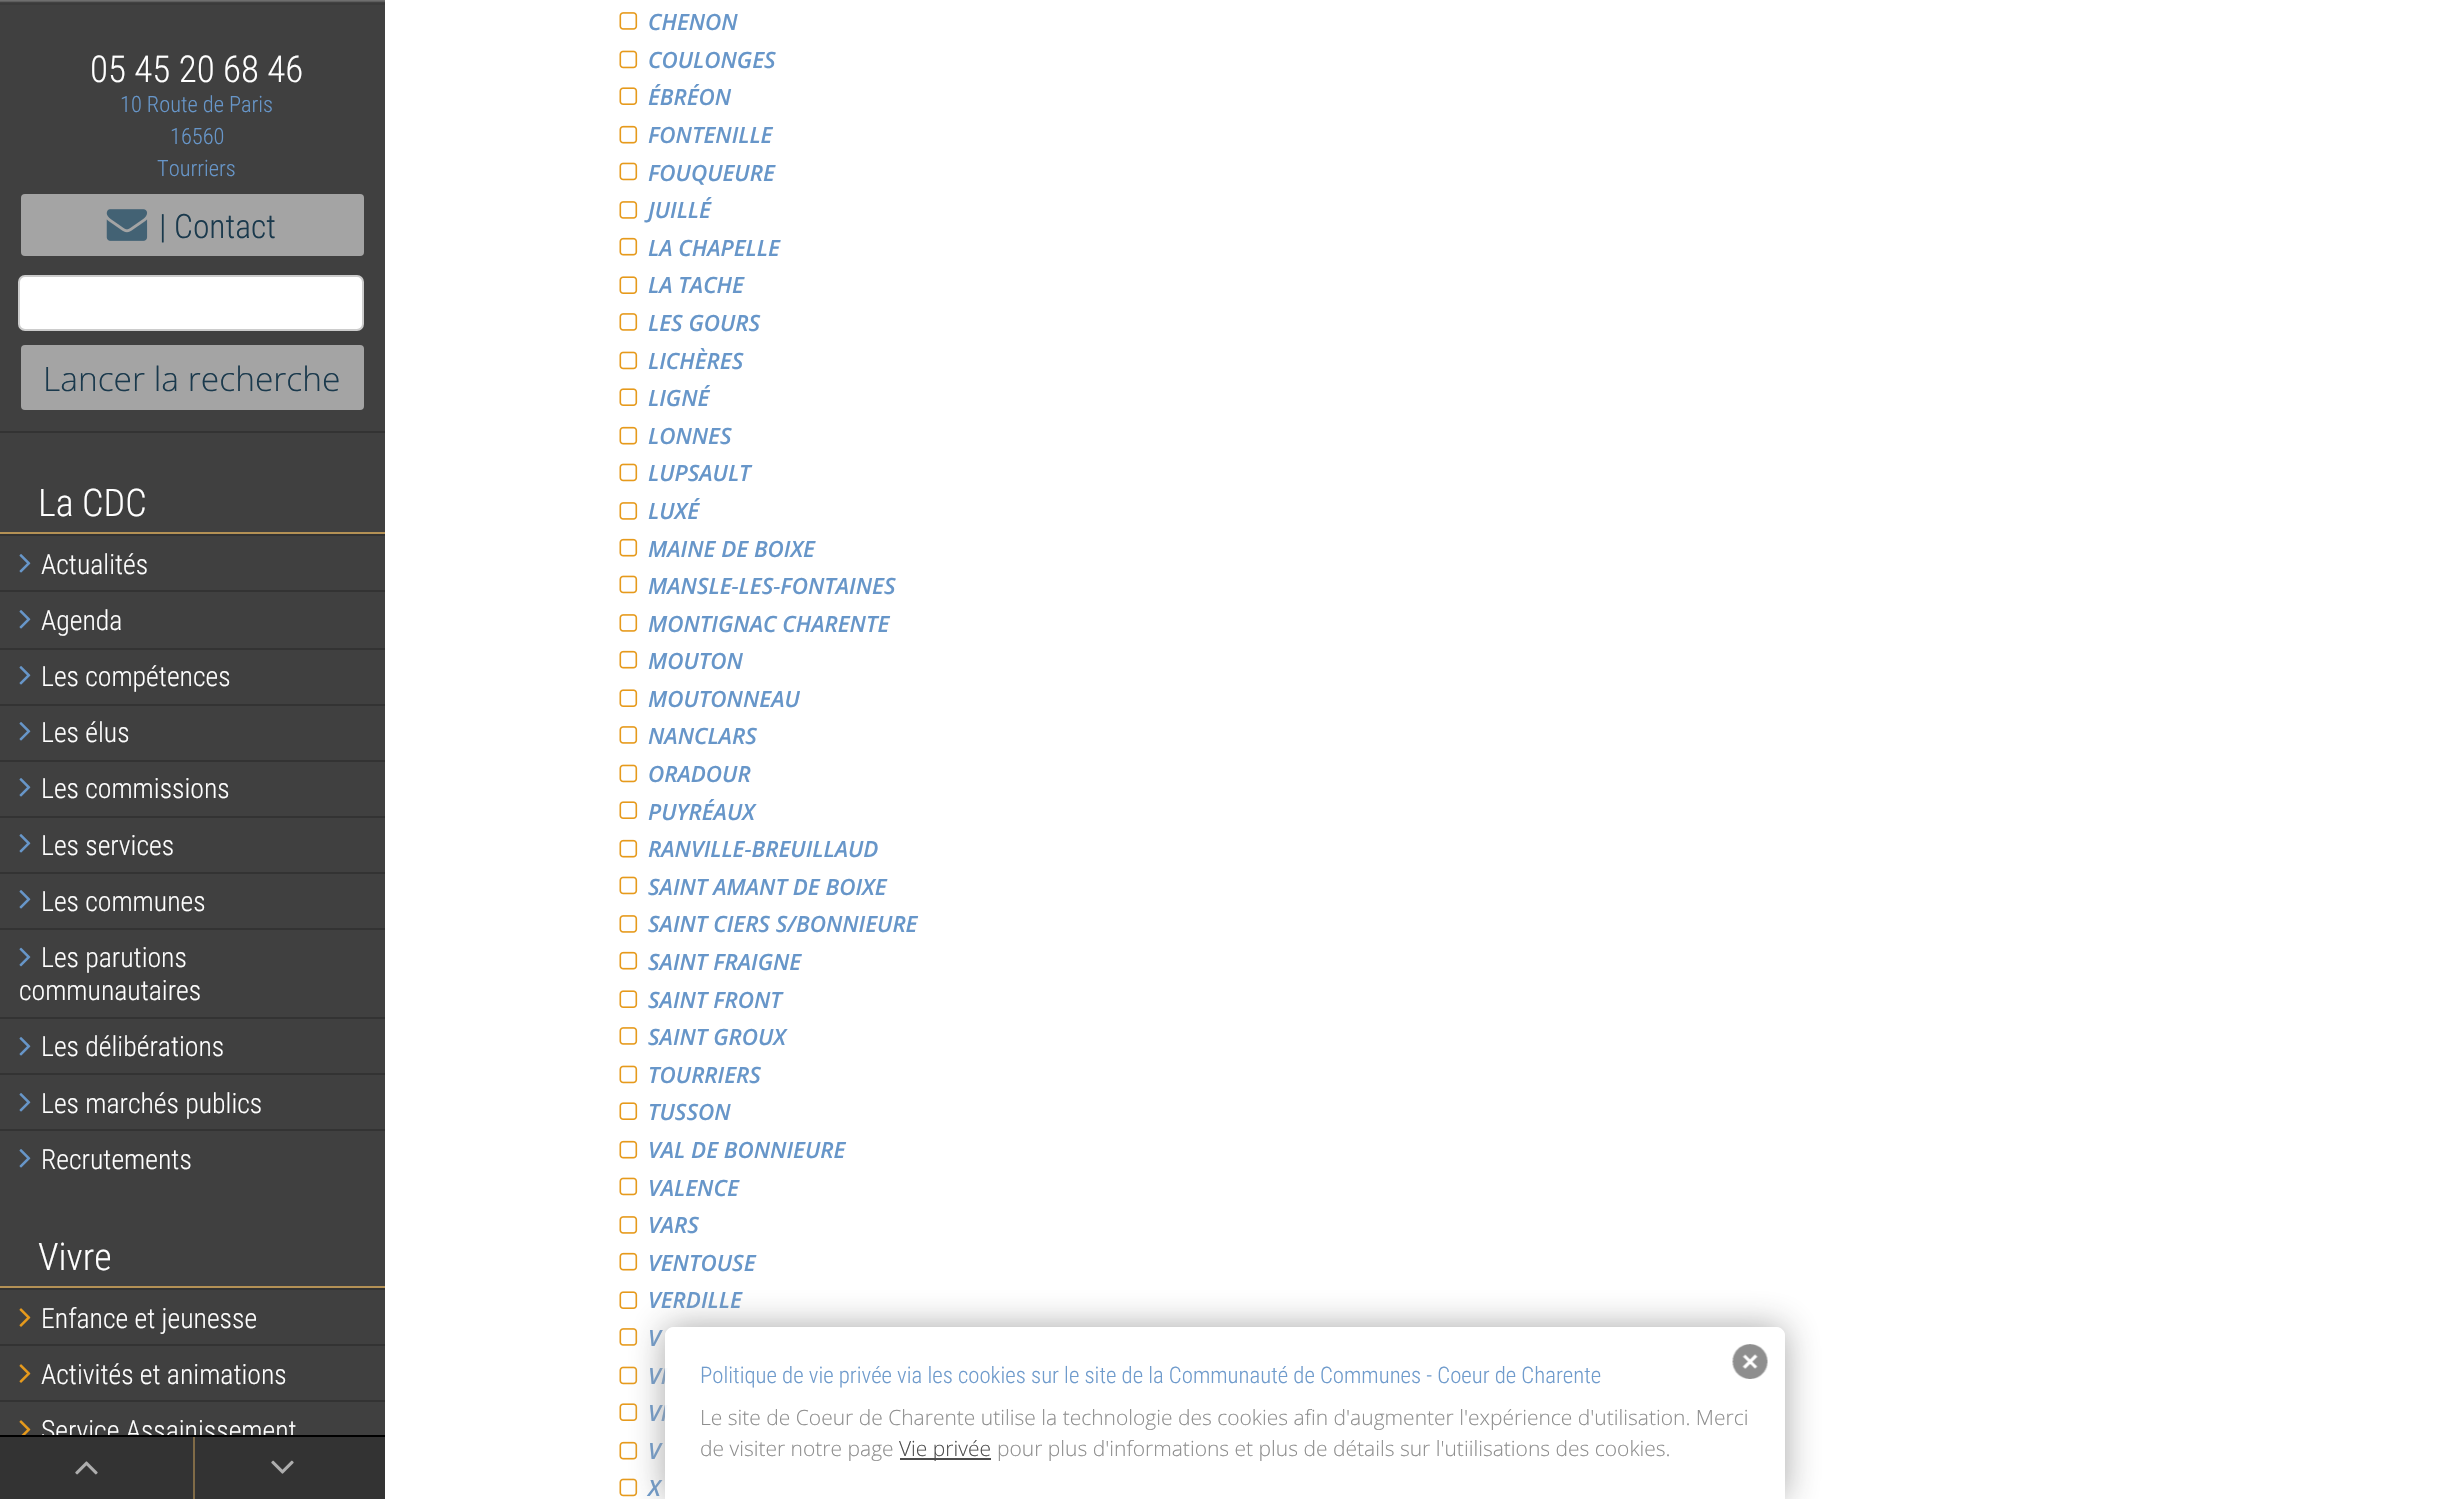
#include "include/core/SkBlurTypes.h"
#include "include/core/SkCanvas.h"
#include "include/core/SkData.h"
#include "include/core/SkFont.h"
#include "include/core/SkFontMgr.h"
#include "include/core/SkImage.h"
#include "include/core/SkMaskFilter.h"
#include "include/core/SkPaint.h"
#include "include/core/SkPathBuilder.h"
#include "include/core/SkTextBlob.h"
#include "include/effects/SkDashPathEffect.h"
#include "include/effects/SkGradientShader.h"
#include "include/utils/SkParsePath.h"

extern sk_sp<SkFontMgr> fontMgr;

void draw(SkCanvas* canvas) {
    SkPaint p;
    p.setAntiAlias(true);
    auto font = [&](const char* family, int weight, float size, bool italic = false) {
        SkFontStyle style(weight, SkFontStyle::kNormal_Width,
            italic ? SkFontStyle::kItalic_Slant : SkFontStyle::kUpright_Slant);
        SkFont result(fontMgr->matchFamilyStyle(family, style), size);
        result.setSubpixel(true);
        return result;
    };
    auto drawPhoto = [&](const char* path, float l, float t, float r, float b) {
        auto image = SkImages::DeferredFromEncodedData(SkData::MakeFromFileName(path));
        canvas->drawImageRect(image, SkRect::MakeLTRB(l, t, r, b), SkSamplingOptions());
    };
    canvas->clear(0xFFFFFFFF);
    p.setColor(0xFF404040);
    canvas->drawRect(SkRect::MakeLTRB(0, 5, 385, 1435), p);
    drawPhoto("media/1.png", 0, 0, 385, 5);
    auto font1 = font("Roboto Condensed", 300, 37);
    p.setColor(0xFFFFFFFF);
    canvas->drawString("05 45 20 68 46", 90, 82, font1, p);
    auto font2 = font("Roboto Condensed", 300, 22.4f);
    p.setColor(0xFF6796C9);
    {
        const struct { const char* s; float x, y; } items[] = {
            {"10 Route de Paris", 120, 112},
            {"16560", 170, 144},
            {"Tourriers", 157, 176},
        };
        for (auto [s, x, y] : items) {
            canvas->drawString(s, x, y, font2, p);
        }
    }
    p.setColor(0xFFA4A4A4);
    canvas->drawRoundRect(SkRect::MakeLTRB(21, 194, 364, 256), 4, 4, p);
    drawPhoto("media/2.png", 106, 209, 148, 241);
    auto font3 = font("Roboto Condensed", 300, 33.5f);
    p.setColor(0xFF1A394C);
    canvas->drawString("| Contact", 159, 238, font3, p);
    p.setColor(0xFFFFFFFF);
    canvas->drawRoundRect(SkRect::MakeLTRB(19, 276, 363, 330), 6, 6, p);
    p.setStyle(SkPaint::kStroke_Style);
    p.setStrokeWidth(2);
    p.setColor(0xFFCCCCCC);
    canvas->drawRoundRect(SkRect::MakeLTRB(19, 276, 363, 330), 6, 6, p);
    p.setStyle(SkPaint::kFill_Style);
    p.setColor(0xFFA4A4A4);
    canvas->drawRoundRect(SkRect::MakeLTRB(21, 345, 364, 410), 4, 4, p);
    auto font4 = font("Open Sans", 300, 33.5f);
    p.setColor(0xFF1A394C);
    canvas->drawString("Lancer la recherche", 43, 391, font4, p);
    p.setColor(0xFF333333);
    canvas->drawRect(SkRect::MakeLTRB(0, 431, 385, 433), p);
    p.setColor(0xFFB49155);
    canvas->drawRect(SkRect::MakeLTRB(0, 532, 385, 534), p);
    auto font5 = font("Roboto Condensed", 300, 38);
    p.setColor(0xFFFFFFFF);
    canvas->drawString("La CDC", 38, 516, font5, p);
    p.setColor(0xFF333333);
    canvas->drawRect(SkRect::MakeLTRB(0, 534, 385, 536), p);
    drawPhoto("media/3.png", 19, 554, 31, 573);
    auto font6 = font("Roboto Condensed", 300, 27.75f);
    p.setColor(0xFFFFFFFF);
    canvas->drawString("Actualités", 41, 574, font6, p);
    p.setColor(0xFF333333);
    canvas->drawRect(SkRect::MakeLTRB(0, 590, 385, 592), p);
    drawPhoto("media/3.png", 19, 610, 31, 629);
    p.setColor(0xFFFFFFFF);
    canvas->drawString("Agenda", 41, 630, font6, p);
    p.setColor(0xFF333333);
    canvas->drawRect(SkRect::MakeLTRB(0, 648, 385, 650), p);
    drawPhoto("media/3.png", 19, 666, 31, 685);
    p.setColor(0xFFFFFFFF);
    canvas->drawString("Les compétences", 41, 686, font6, p);
    p.setColor(0xFF333333);
    canvas->drawRect(SkRect::MakeLTRB(0, 704, 385, 706), p);
    drawPhoto("media/3.png", 19, 722, 31, 741);
    p.setColor(0xFFFFFFFF);
    canvas->drawString("Les élus", 41, 742, font6, p);
    p.setColor(0xFF333333);
    canvas->drawRect(SkRect::MakeLTRB(0, 760, 385, 762), p);
    drawPhoto("media/3.png", 19, 778, 31, 797);
    p.setColor(0xFFFFFFFF);
    canvas->drawString("Les commissions", 41, 798, font6, p);
    p.setColor(0xFF333333);
    canvas->drawRect(SkRect::MakeLTRB(0, 816, 385, 818), p);
    drawPhoto("media/3.png", 19, 834, 31, 853);
    p.setColor(0xFFFFFFFF);
    canvas->drawString("Les services", 41, 855, font6, p);
    p.setColor(0xFF333333);
    canvas->drawRect(SkRect::MakeLTRB(0, 872, 385, 874), p);
    drawPhoto("media/3.png", 19, 890, 31, 909);
    p.setColor(0xFFFFFFFF);
    canvas->drawString("Les communes", 41, 911, font6, p);
    p.setColor(0xFF333333);
    canvas->drawRect(SkRect::MakeLTRB(0, 928, 385, 930), p);
    drawPhoto("media/4.png", 19, 947, 31, 967);
    p.setColor(0xFFFFFFFF);
    canvas->drawString("Les parutions", 41, 967, font6, p);
    canvas->drawString("communautaires", 19, 1000, font6, p);
    p.setColor(0xFF333333);
    canvas->drawRect(SkRect::MakeLTRB(0, 1017, 385, 1019), p);
    drawPhoto("media/3.png", 19, 1037, 31, 1056);
    p.setColor(0xFFFFFFFF);
    canvas->drawString("Les délibérations", 41, 1056, font6, p);
    p.setColor(0xFF333333);
    canvas->drawRect(SkRect::MakeLTRB(0, 1073, 385, 1075), p);
    drawPhoto("media/3.png", 19, 1093, 31, 1112);
    p.setColor(0xFFFFFFFF);
    canvas->drawString("Les marchés publics", 41, 1113, font6, p);
    p.setColor(0xFF333333);
    canvas->drawRect(SkRect::MakeLTRB(0, 1129, 385, 1131), p);
    drawPhoto("media/3.png", 19, 1149, 31, 1168);
    p.setColor(0xFFFFFFFF);
    canvas->drawString("Recrutements", 41, 1169, font6, p);
    p.setColor(0xFFB49155);
    canvas->drawRect(SkRect::MakeLTRB(0, 1286, 385, 1288), p);
    p.setColor(0xFFFFFFFF);
    canvas->drawString("Vivre", 38, 1270, font5, p);
    p.setColor(0xFF333333);
    canvas->drawRect(SkRect::MakeLTRB(0, 1288, 385, 1290), p);
    drawPhoto("media/5.png", 19, 1308, 31, 1327);
    p.setColor(0xFFFFFFFF);
    canvas->drawString("Enfance et jeunesse", 41, 1328, font6, p);
    p.setColor(0xFF333333);
    canvas->drawRect(SkRect::MakeLTRB(0, 1344, 385, 1346), p);
    drawPhoto("media/5.png", 19, 1364, 31, 1383);
    p.setColor(0xFFFFFFFF);
    canvas->drawString("Activités et animations", 41, 1384, font6, p);
    p.setColor(0xFF333333);
    canvas->drawRect(SkRect::MakeLTRB(0, 1400, 385, 1402), p);
    drawPhoto("media/6.png", 19, 1420, 31, 1435);
    p.setColor(0xFFFFFFFF);
    canvas->drawString("Service Assainissement", 41, 1440, font6, p);
    p.setColor(0xFF333333);
    canvas->drawRect(SkRect::MakeLTRB(0, 1437, 385, 1499), p);
    p.setColor(0xFF000000);
    canvas->drawRect(SkRect::MakeLTRB(0, 1435, 385, 1437), p);
    drawPhoto("media/7.png", 75, 1461, 98, 1475);
    p.setColor(0xFF806B47);
    canvas->drawRect(SkRect::MakeLTRB(193, 1437, 195, 1499), p);
    drawPhoto("media/8.png", 271, 1460, 294, 1474);
    drawPhoto("media/9.png", 619, 12, 638, 30);
    auto font7 = font("Open Sans", 600, 22.4f, true);
    p.setColor(0xFF6796C9);
    canvas->drawString("CHENON", 648, 30, font7, p);
    drawPhoto("media/10.png", 619, 50, 638, 69);
    canvas->drawString("COULONGES", 648, 68, font7, p);
    drawPhoto("media/11.png", 619, 87, 638, 105);
    canvas->drawString("ÉBRÉON", 648, 105, font7, p);
    drawPhoto("media/12.png", 619, 125, 638, 144);
    canvas->drawString("FONTENILLE", 648, 143, font7, p);
    drawPhoto("media/10.png", 619, 162, 638, 181);
    canvas->drawString("FOUQUEURE", 648, 181, font7, p);
    drawPhoto("media/9.png", 619, 201, 638, 219);
    canvas->drawString("JUILLÉ", 648, 218, font7, p);
    drawPhoto("media/12.png", 619, 237, 638, 256);
    canvas->drawString("LA CHAPELLE", 648, 256, font7, p);
    drawPhoto("media/11.png", 619, 276, 638, 294);
    canvas->drawString("LA TACHE", 648, 293, font7, p);
    drawPhoto("media/9.png", 619, 313, 638, 331);
    canvas->drawString("LES GOURS", 648, 331, font7, p);
    drawPhoto("media/10.png", 619, 351, 638, 370);
    canvas->drawString("LICHÈRES", 648, 369, font7, p);
    drawPhoto("media/11.png", 619, 388, 638, 406);
    canvas->drawString("LIGNÉ", 648, 406, font7, p);
    drawPhoto("media/12.png", 619, 426, 638, 445);
    canvas->drawString("LONNES", 648, 444, font7, p);
    drawPhoto("media/10.png", 619, 463, 638, 482);
    canvas->drawString("LUPSAULT", 648, 481, font7, p);
    drawPhoto("media/9.png", 619, 502, 638, 520);
    canvas->drawString("LUXÉ", 648, 519, font7, p);
    drawPhoto("media/12.png", 619, 538, 638, 557);
    canvas->drawString("MAINE DE BOIXE", 648, 557, font7, p);
    drawPhoto("media/10.png", 619, 575, 638, 594);
    canvas->drawString("MANSLE-LES-FONTAINES", 648, 594, font7, p);
    drawPhoto("media/9.png", 619, 614, 638, 632);
    canvas->drawString("MONTIGNAC CHARENTE", 648, 632, font7, p);
    drawPhoto("media/12.png", 619, 650, 638, 669);
    canvas->drawString("MOUTON", 648, 669, font7, p);
    drawPhoto("media/11.png", 619, 689, 638, 707);
    canvas->drawString("MOUTONNEAU", 648, 707, font7, p);
    drawPhoto("media/9.png", 619, 726, 638, 744);
    canvas->drawString("NANCLARS", 648, 744, font7, p);
    drawPhoto("media/10.png", 619, 764, 638, 783);
    canvas->drawString("ORADOUR", 648, 782, font7, p);
    drawPhoto("media/11.png", 619, 801, 638, 819);
    canvas->drawString("PUYRÉAUX", 648, 820, font7, p);
    drawPhoto("media/12.png", 619, 839, 638, 858);
    canvas->drawString("RANVILLE-BREUILLAUD", 648, 857, font7, p);
    drawPhoto("media/10.png", 619, 876, 638, 895);
    canvas->drawString("SAINT AMANT DE BOIXE", 648, 895, font7, p);
    drawPhoto("media/9.png", 619, 915, 638, 933);
    canvas->drawString("SAINT CIERS S/BONNIEURE", 648, 932, font7, p);
    drawPhoto("media/12.png", 619, 951, 638, 970);
    canvas->drawString("SAINT FRAIGNE", 648, 970, font7, p);
    drawPhoto("media/11.png", 619, 990, 638, 1008);
    canvas->drawString("SAINT FRONT", 648, 1008, font7, p);
    drawPhoto("media/9.png", 619, 1027, 638, 1045);
    canvas->drawString("SAINT GROUX", 648, 1045, font7, p);
    drawPhoto("media/10.png", 619, 1065, 638, 1084);
    canvas->drawString("TOURRIERS", 648, 1083, font7, p);
    drawPhoto("media/11.png", 619, 1102, 638, 1120);
    canvas->drawString("TUSSON", 648, 1120, font7, p);
    drawPhoto("media/12.png", 619, 1140, 638, 1159);
    canvas->drawString("VAL DE BONNIEURE", 648, 1158, font7, p);
    drawPhoto("media/10.png", 619, 1177, 638, 1196);
    canvas->drawString("VALENCE", 648, 1196, font7, p);
    drawPhoto("media/9.png", 619, 1216, 638, 1234);
    canvas->drawString("VARS", 648, 1233, font7, p);
    drawPhoto("media/12.png", 619, 1252, 638, 1271);
    canvas->drawString("VENTOUSE", 648, 1271, font7, p);
    drawPhoto("media/11.png", 619, 1291, 638, 1309);
    canvas->drawString("VERDILLE", 648, 1308, font7, p);
    drawPhoto("media/9.png", 619, 1328, 638, 1346);
    canvas->drawString("V", 648, 1346, font7, p);
    drawPhoto("media/10.png", 619, 1366, 638, 1385);
    canvas->drawString("VI", 648, 1384, font7, p);
    drawPhoto("media/11.png", 619, 1403, 638, 1421);
    canvas->drawString("VI", 648, 1421, font7, p);
    drawPhoto("media/12.png", 619, 1441, 638, 1460);
    canvas->drawString("V", 648, 1459, font7, p);
    drawPhoto("media/10.png", 619, 1478, 638, 1497);
    canvas->drawString("X", 648, 1496, font7, p);
    canvas->save();
    canvas->clipPath(SkPathBuilder(SkPathFillType::kEvenOdd).moveTo(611, 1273).lineTo(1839, 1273).lineTo(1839, 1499).lineTo(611, 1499).close().moveTo(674, 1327).lineTo(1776, 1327).cubicTo(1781, 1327, 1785, 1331, 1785, 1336).lineTo(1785, 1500).lineTo(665, 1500).lineTo(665, 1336).cubicTo(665, 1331, 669, 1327, 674, 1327).close().detach(), true);
    p.setColor(0xF2A1A1A1);
    p.setMaskFilter(SkMaskFilter::MakeBlur(kNormal_SkBlurStyle, 17.5f));
    canvas->drawRoundRect(SkRect::MakeLTRB(665, 1327, 1785, 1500), 9, 9, p);
    p.setMaskFilter(nullptr);
    canvas->restore();
    p.setColor(0xF2FFFFFF);
    canvas->drawPath(SkPathBuilder().moveTo(674, 1327).lineTo(1776, 1327).cubicTo(1781, 1327, 1785, 1331, 1785, 1336).lineTo(1785, 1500).lineTo(665, 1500).lineTo(665, 1336).cubicTo(665, 1331, 669, 1327, 674, 1327).close().detach(), p);
    auto font8 = font("Roboto Condensed", 300, 22.75f);
    p.setColor(0xFF6F9BCC);
    canvas->drawString("Politique de vie privée via les cookies sur le site de la Communauté de Communes - Coeur de Charente", 700, 1383, font8, p);
    drawPhoto("media/13.png", 1732, 1344, 1768, 1379);
    auto font9 = font("Open Sans", 300, 21);
    p.setColor(0xFF8E8E8E);
    canvas->drawString("Le site de Coeur de Charente utilise la technologie des cookies afin d'augmenter l'expérience d'utilisation. Merci", 700, 1425, font9, p);
    canvas->drawString("de visiter notre page", 700, 1456, font9, p);
    p.setColor(0xFF4D4D4D);
    canvas->drawRect(SkRect::MakeLTRB(900, 1458, 991, 1460), p);
    canvas->drawString("Vie privée", 899, 1456, font9, p);
    p.setColor(0xFF8E8E8E);
    canvas->drawString("pour plus d'informations et plus de détails sur l'utiilisations des cookies.", 997, 1456, font9, p);
}
